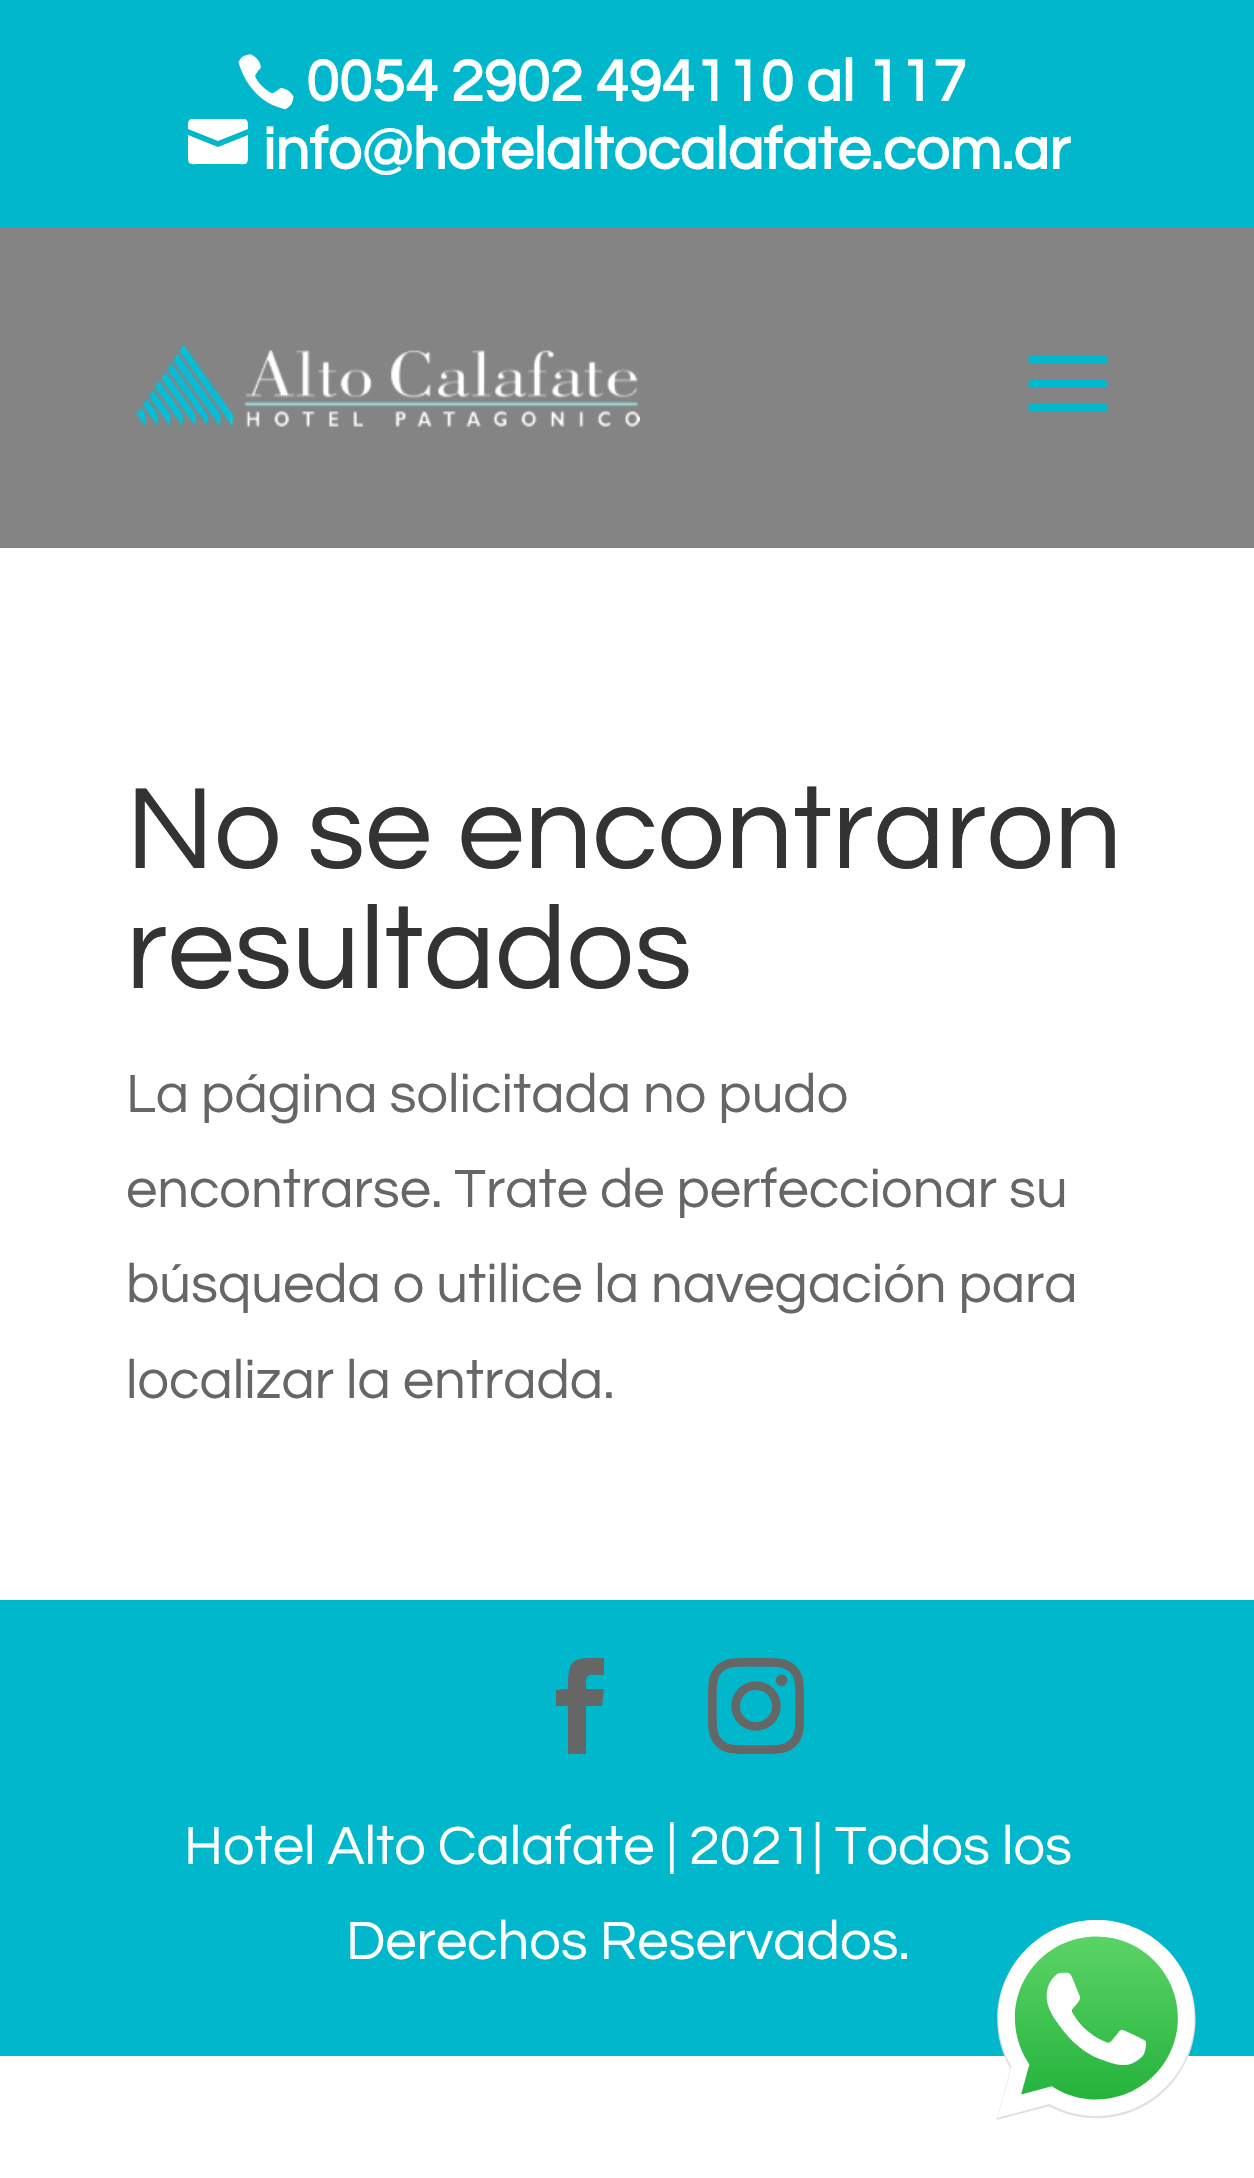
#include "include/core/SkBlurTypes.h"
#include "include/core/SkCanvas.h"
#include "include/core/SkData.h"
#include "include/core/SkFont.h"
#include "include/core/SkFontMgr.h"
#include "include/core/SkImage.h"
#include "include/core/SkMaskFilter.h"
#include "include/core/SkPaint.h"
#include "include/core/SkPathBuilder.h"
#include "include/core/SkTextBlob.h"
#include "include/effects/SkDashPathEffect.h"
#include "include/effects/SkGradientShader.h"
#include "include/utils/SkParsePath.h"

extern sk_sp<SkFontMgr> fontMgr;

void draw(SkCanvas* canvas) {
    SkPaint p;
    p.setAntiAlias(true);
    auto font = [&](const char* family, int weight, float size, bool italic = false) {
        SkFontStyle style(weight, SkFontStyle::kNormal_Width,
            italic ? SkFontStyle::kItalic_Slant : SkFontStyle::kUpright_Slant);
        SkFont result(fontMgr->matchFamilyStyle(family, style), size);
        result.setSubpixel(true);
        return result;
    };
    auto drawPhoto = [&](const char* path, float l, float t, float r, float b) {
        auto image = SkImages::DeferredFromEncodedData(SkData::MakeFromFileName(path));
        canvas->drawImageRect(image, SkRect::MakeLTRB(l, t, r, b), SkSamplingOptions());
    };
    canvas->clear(0xFFFFFFFF);
    p.setColor(0xFF00B7CC);
    canvas->drawRect(SkRect::MakeLTRB(0, 0, 1254, 228), p);
    drawPhoto("media/1.png", 238, 54, 294, 110);
    auto font1 = font("Questrial", 700, 60);
    p.setColor(0xFFFFFFFF);
    canvas->drawString("0054 2902 494110 al 117", 306, 101, font1, p);
    canvas->drawString("info@hotelaltocalafate.com.ar", 263, 169, font1, p);
    canvas->drawPath(SkPathBuilder().moveTo(244, 119).lineTo(192, 119).cubicTo(187, 119, 188, 126, 188, 129).lineTo(218, 141).lineTo(248, 129).cubicTo(248, 126, 249, 119, 244, 119).close().moveTo(188, 135).lineTo(188, 156).cubicTo(188, 166, 190, 164, 200, 164).lineTo(236, 164).cubicTo(246, 164, 248, 166, 248, 156).lineTo(248, 135).lineTo(218, 147).close().detach(), p);
    p.setColor(0xFF848484);
    canvas->drawRect(SkRect::MakeLTRB(0, 228, 1254, 548), p);
    drawPhoto("media/2.png", 136, 344, 640, 428);
    drawPhoto("media/3.png", 1028, 356, 1108, 412);
    auto font2 = font("Questrial", 400, 120);
    p.setColor(0xFF333333);
    canvas->drawString("No se encontraron", 126, 868, font2, p);
    canvas->drawString("resultados", 126, 988, font2, p);
    auto font3 = font("Questrial", 400, 56);
    p.setColor(0xFF666666);
    {
        const struct { const char* s; float x, y; } items[] = {
            {"La página solicitada no pudo", 126, 1112},
            {"encontrarse. Trate de perfeccionar su", 126, 1207},
            {"búsqueda o utilice la navegación para", 126, 1302},
            {"localizar la entrada.", 126, 1398},
        };
        for (auto [s, x, y] : items) {
            canvas->drawString(s, x, y, font3, p);
        }
    }
    p.setColor(0xFF00B7CC);
    canvas->drawRect(SkRect::MakeLTRB(0, 1600, 1254, 2056), p);
    p.setColor(0xFF666666);
    canvas->drawPath(SkPathBuilder().moveTo(568, 1754).lineTo(586, 1754).lineTo(586, 1706).lineTo(602, 1706).lineTo(604, 1689).lineTo(586, 1689).cubicTo(586, 1672, 586, 1675, 604, 1675).lineTo(604, 1658).cubicTo(573, 1658, 568, 1656, 568, 1689).lineTo(556, 1690).lineTo(556, 1706).lineTo(568, 1706).close().detach(), p);
    drawPhoto("media/4.png", 708, 1658, 804, 1754);
    p.setColor(0xFFFFFFFF);
    canvas->drawString("Hotel Alto Calafate | 2021| Todos los", 184, 1864, font3, p);
    canvas->drawString("Derechos Reservados.", 346, 1959, font3, p);
    drawPhoto("media/5.png", 996, 1920, 1196, 2120);
}
